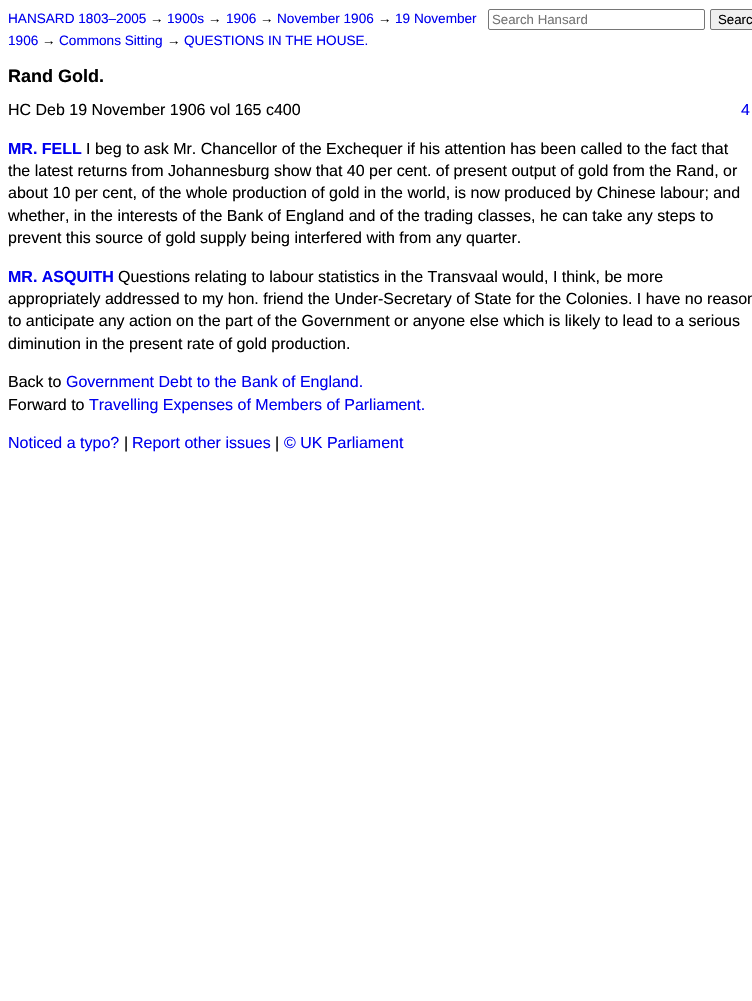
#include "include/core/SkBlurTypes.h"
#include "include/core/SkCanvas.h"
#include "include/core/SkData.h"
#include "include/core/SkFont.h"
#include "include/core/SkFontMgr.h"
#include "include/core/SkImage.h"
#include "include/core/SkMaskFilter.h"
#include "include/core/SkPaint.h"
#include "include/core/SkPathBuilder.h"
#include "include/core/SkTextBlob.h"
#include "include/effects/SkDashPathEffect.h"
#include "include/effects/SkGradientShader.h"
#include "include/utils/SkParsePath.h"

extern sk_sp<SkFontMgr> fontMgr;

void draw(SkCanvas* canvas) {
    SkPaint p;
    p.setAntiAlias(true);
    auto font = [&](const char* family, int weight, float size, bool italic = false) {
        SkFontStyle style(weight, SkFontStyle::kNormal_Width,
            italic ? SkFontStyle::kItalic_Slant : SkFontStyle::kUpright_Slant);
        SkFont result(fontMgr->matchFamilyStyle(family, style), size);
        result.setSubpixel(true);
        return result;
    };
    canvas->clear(0xFFFFFFFF);
    auto font1 = font("Liberation Sans", 400, 13.6f);
    p.setColor(0xFF0000EE);
    canvas->drawString("HANSARD 1803–2005", 8, 23, font1, p);
    p.setColor(0xFF000000);
    canvas->drawString("→", 150, 23, font1, p);
    p.setColor(0xFF0000EE);
    canvas->drawString("1900s", 167, 23, font1, p);
    p.setColor(0xFF000000);
    canvas->drawString("→", 208, 23, font1, p);
    p.setColor(0xFF0000EE);
    canvas->drawString("1906", 226, 23, font1, p);
    p.setColor(0xFF000000);
    canvas->drawString("→", 260, 23, font1, p);
    p.setColor(0xFF0000EE);
    canvas->drawString("November 1906", 277, 23, font1, p);
    p.setColor(0xFF000000);
    canvas->drawString("→", 378, 23, font1, p);
    p.setColor(0xFF0000EE);
    canvas->drawString("19 November", 395, 23, font1, p);
    canvas->drawString("1906", 8, 45, font1, p);
    p.setColor(0xFF000000);
    canvas->drawString("→", 42, 45, font1, p);
    p.setColor(0xFF0000EE);
    canvas->drawString("Commons Sitting", 59, 45, font1, p);
    p.setColor(0xFF000000);
    canvas->drawString("→", 167, 45, font1, p);
    p.setColor(0xFF0000EE);
    canvas->drawString("QUESTIONS IN THE HOUSE.", 184, 45, font1, p);
    p.setStyle(SkPaint::kStroke_Style);
    p.setStrokeWidth(1);
    p.setColor(0xFF767676);
    canvas->drawRoundRect(SkRect::MakeLTRB(488.5f, 9.5f, 704.5f, 29.5f), 1.5f, 1.5f, p);
    auto font2 = font("Liberation Sans", 400, 13.25f);
    p.setStyle(SkPaint::kFill_Style);
    p.setColor(0xFF757575);
    canvas->drawString("Search Hansard", 492, 24, font2, p);
    p.setColor(0xFFEFEFEF);
    canvas->drawRoundRect(SkRect::MakeLTRB(710.5f, 9.5f, 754.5f, 29.5f), 1.5f, 1.5f, p);
    p.setStyle(SkPaint::kStroke_Style);
    p.setColor(0xFF767676);
    canvas->drawRoundRect(SkRect::MakeLTRB(710.5f, 9.5f, 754.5f, 29.5f), 1.5f, 1.5f, p);
    p.setStyle(SkPaint::kFill_Style);
    p.setColor(0xFF000000);
    canvas->drawString("Searc", 718, 24, font2, p);
    auto font3 = font("Liberation Sans", 700, 18);
    canvas->drawString("Rand Gold.", 8, 82, font3, p);
    auto font4 = font("Liberation Sans", 400, 16);
    canvas->drawString("HC Deb 19 November 1906 vol 165 c400", 8, 115, font4, p);
    p.setColor(0xFF0000EE);
    canvas->drawString("4", 741, 115, font4, p);
    auto font5 = font("Liberation Sans", 700, 16);
    canvas->drawString("MR. FELL", 8, 154, font5, p);
    p.setColor(0xFF000000);
    {
        const struct { const char* s; float x, y; } items[] = {
            {"I beg to ask Mr. Chancellor of the Exchequer if his attention has been called to the fact that", 86, 154},
            {"the latest returns from Johannesburg show that 40 per cent. of present output of gold from the Rand, or", 8, 176},
            {"about 10 per cent, of the whole production of gold in the world, is now produced by Chinese labour; and", 8, 198},
            {"whether, in the interests of the Bank of England and of the trading classes, he can take any steps to", 8, 221},
            {"prevent this source of gold supply being interfered with from any quarter.", 8, 243},
        };
        for (auto [s, x, y] : items) {
            canvas->drawString(s, x, y, font4, p);
        }
    }
    p.setColor(0xFF0000EE);
    canvas->drawString("MR. ASQUITH", 8, 282, font5, p);
    p.setColor(0xFF000000);
    {
        const struct { const char* s; float x, y; } items[] = {
            {"Questions relating to labour statistics in the Transvaal would, I think, be more", 118, 282},
            {"appropriately addressed to my hon. friend the Under-Secretary of State for the Colonies. I have no reason", 8, 304},
            {"to anticipate any action on the part of the Government or anyone else which is likely to lead to a serious", 8, 326},
            {"diminution in the present rate of gold production.", 8, 349},
            {"Back to", 8, 387},
        };
        for (auto [s, x, y] : items) {
            canvas->drawString(s, x, y, font4, p);
        }
    }
    p.setColor(0xFF0000EE);
    canvas->drawString("Government Debt to the Bank of England.", 66, 387, font4, p);
    p.setColor(0xFF000000);
    canvas->drawString("Forward to", 8, 410, font4, p);
    p.setColor(0xFF0000EE);
    canvas->drawString("Travelling Expenses of Members of Parliament.", 89, 410, font4, p);
    canvas->drawString("Noticed a typo?", 8, 448, font4, p);
    p.setColor(0xFF000000);
    canvas->drawString("|", 124, 448, font4, p);
    p.setColor(0xFF0000EE);
    canvas->drawString("Report other issues", 132, 448, font4, p);
    p.setColor(0xFF000000);
    canvas->drawString("|", 275, 448, font4, p);
    p.setColor(0xFF0000EE);
    canvas->drawString("© UK Parliament", 284, 448, font4, p);
}
